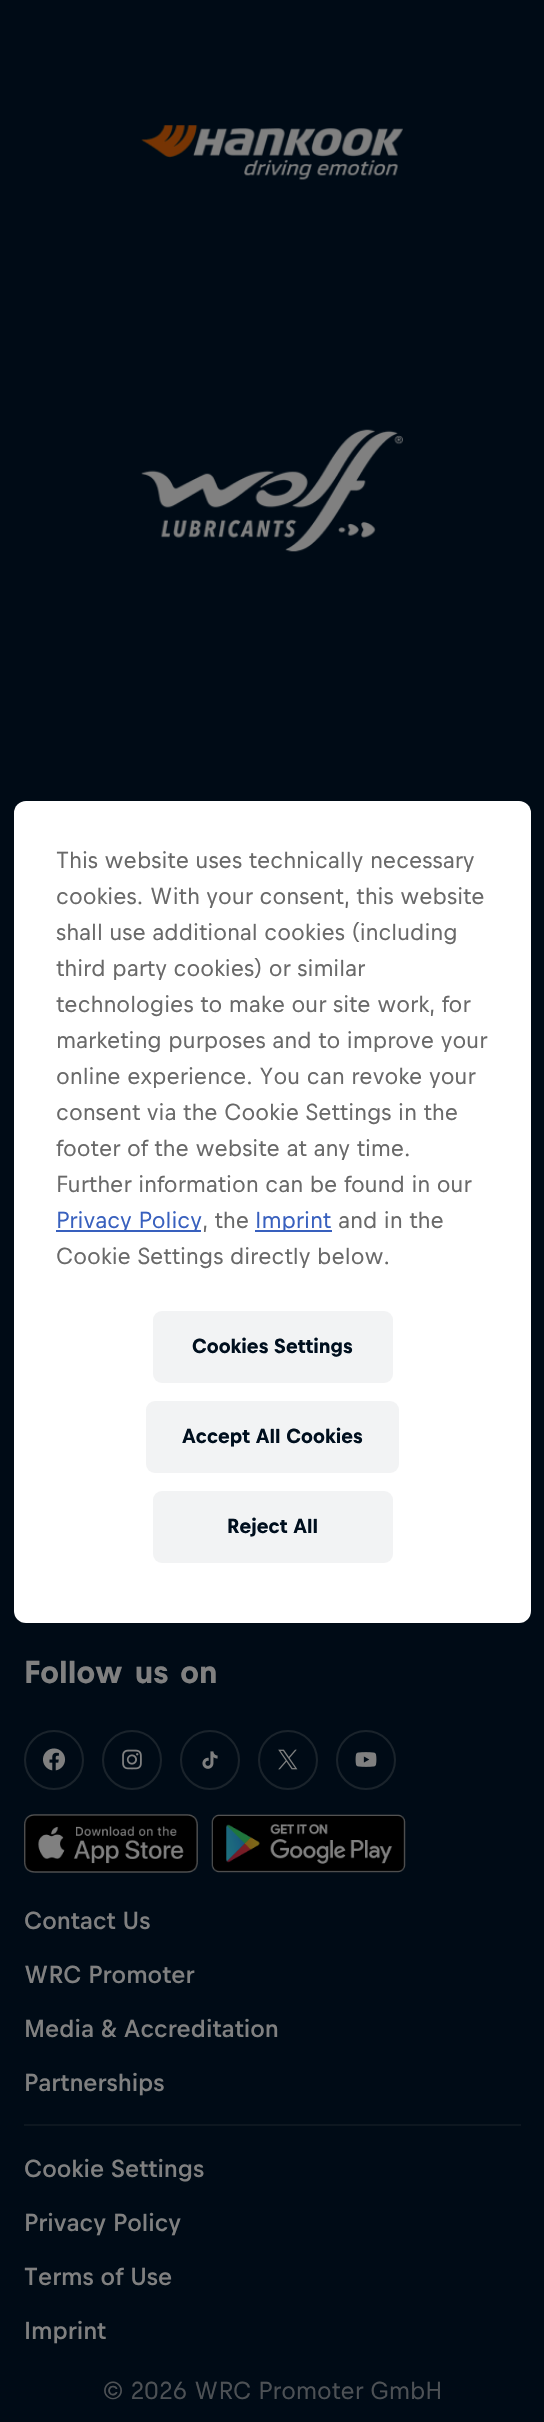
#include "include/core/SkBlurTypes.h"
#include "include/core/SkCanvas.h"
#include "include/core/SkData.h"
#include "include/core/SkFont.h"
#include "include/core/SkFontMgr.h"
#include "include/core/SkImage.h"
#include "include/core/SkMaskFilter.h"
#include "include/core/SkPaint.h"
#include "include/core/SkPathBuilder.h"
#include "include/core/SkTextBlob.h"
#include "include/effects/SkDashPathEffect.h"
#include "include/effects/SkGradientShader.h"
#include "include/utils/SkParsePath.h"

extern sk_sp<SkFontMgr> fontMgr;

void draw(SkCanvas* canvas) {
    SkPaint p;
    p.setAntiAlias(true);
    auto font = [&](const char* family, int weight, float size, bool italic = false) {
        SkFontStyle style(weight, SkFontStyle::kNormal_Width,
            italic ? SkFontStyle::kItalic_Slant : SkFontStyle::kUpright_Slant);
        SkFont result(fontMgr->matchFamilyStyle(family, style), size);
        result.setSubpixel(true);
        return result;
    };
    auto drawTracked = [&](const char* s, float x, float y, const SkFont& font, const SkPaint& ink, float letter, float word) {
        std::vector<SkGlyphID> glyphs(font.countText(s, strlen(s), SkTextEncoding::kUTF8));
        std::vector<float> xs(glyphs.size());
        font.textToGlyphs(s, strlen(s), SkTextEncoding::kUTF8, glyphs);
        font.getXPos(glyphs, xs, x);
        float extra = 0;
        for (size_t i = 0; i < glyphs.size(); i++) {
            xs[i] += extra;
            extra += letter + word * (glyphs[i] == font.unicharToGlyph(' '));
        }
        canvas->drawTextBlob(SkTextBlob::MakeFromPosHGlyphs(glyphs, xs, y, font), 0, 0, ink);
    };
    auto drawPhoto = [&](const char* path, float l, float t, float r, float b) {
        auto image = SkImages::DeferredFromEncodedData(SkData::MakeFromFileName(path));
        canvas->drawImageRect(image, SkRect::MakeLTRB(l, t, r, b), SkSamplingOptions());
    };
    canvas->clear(0xFF000B16);
    p.setColor(0xFFFFFFFF);
    canvas->drawRoundRect(SkRect::MakeLTRB(14, 801, 531, 1623), 12, 12, p);
    auto font1 = font("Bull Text", 400, 24);
    p.setColor(0xFF696969);
    {
        const struct { const char* s; float x, y; } items[] = {
            {"This website uses technically necessary", 56, 868},
            {"cookies. With your consent, this website", 56, 904},
            {"shall use additional cookies (including", 56, 940},
            {"third party cookies) or similar", 56, 976},
            {"technologies to make our site work, for", 56, 1012},
            {"marketing purposes and to improve your", 56, 1048},
            {"online experience. You can revoke your", 56, 1084},
            {"consent via the Cookie Settings in the", 56, 1120},
            {"footer of the website at any time.", 56, 1156},
            {"Further information can be found in our", 56, 1192},
        };
        for (auto [s, x, y] : items) {
            canvas->drawString(s, x, y, font1, p);
        }
    }
    p.setColor(0xFF3860BE);
    canvas->drawRect(SkRect::MakeLTRB(56, 1230, 201, 1232), p);
    canvas->drawString("Privacy Policy", 56, 1228, font1, p);
    p.setColor(0xFF696969);
    canvas->drawString(", the", 202, 1228, font1, p);
    p.setColor(0xFF3860BE);
    canvas->drawRect(SkRect::MakeLTRB(255, 1230, 332, 1232), p);
    canvas->drawString("Imprint", 255, 1228, font1, p);
    p.setColor(0xFF696969);
    canvas->drawString("and in the", 338, 1228, font1, p);
    canvas->drawString("Cookie Settings directly below.", 56, 1264, font1, p);
    p.setColor(0xFFF2F3F4);
    canvas->drawRoundRect(SkRect::MakeLTRB(153, 1311, 393, 1383), 9, 9, p);
    auto font2 = font("Bull Text", 700, 21);
    p.setColor(0xFF000F1E);
    canvas->drawString("Cookies Settings", 192, 1353, font2, p);
    p.setColor(0xFFF2F3F4);
    canvas->drawRoundRect(SkRect::MakeLTRB(146, 1401, 399, 1473), 9, 9, p);
    p.setColor(0xFF000F1E);
    canvas->drawString("Accept All Cookies", 182, 1443, font2, p);
    p.setColor(0xFFF2F3F4);
    canvas->drawRoundRect(SkRect::MakeLTRB(153, 1491, 393, 1563), 9, 9, p);
    p.setColor(0xFF000F1E);
    canvas->drawString("Reject All", 227, 1533, font2, p);
    drawPhoto("media/1.png", 141, 125, 403, 180);
    drawPhoto("media/2.png", 141, 429, 403, 552);
    auto font3 = font("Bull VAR", 700, 33);
    p.setColor(0xFF808080);
    drawTracked("Follow us on", 24, 1683, font3, p, 0, 3);
    p.setStyle(SkPaint::kStroke_Style);
    p.setStrokeWidth(2);
    p.setColor(0xFF1A232B);
    canvas->drawCircle(54, 1760, 29, p);
    drawPhoto("media/3.png", 43, 1748, 66, 1771);
    canvas->drawCircle(132, 1760, 29, p);
    drawPhoto("media/4.png", 122, 1749, 142, 1770);
    canvas->drawCircle(210, 1760, 29, p);
    drawPhoto("media/5.png", 202, 1751, 218, 1769);
    canvas->drawCircle(288, 1760, 29, p);
    drawPhoto("media/6.png", 278, 1749, 298, 1770);
    canvas->drawCircle(366, 1760, 29, p);
    drawPhoto("media/7.png", 355, 1752, 377, 1767);
    drawPhoto("media/8.png", 24, 1814, 198, 1873);
    drawPhoto("media/9.png", 211, 1814, 406, 1873);
    auto font4 = font("Bull VAR", 500, 25.5f);
    p.setStyle(SkPaint::kFill_Style);
    p.setColor(0xFF808080);
    {
        const struct { const char* s; float x, y; } items[] = {
            {"Contact Us", 24, 1929},
            {"WRC Promoter", 24, 1983},
            {"Media & Accreditation", 24, 2037},
            {"Partnerships", 24, 2091},
        };
        for (auto [s, x, y] : items) {
            canvas->drawString(s, x, y, font4, p);
        }
    }
    p.setColor(0xFF0D1720);
    canvas->drawRect(SkRect::MakeLTRB(24, 2124, 521, 2126), p);
    p.setColor(0xFF808080);
    {
        const struct { const char* s; float x, y; } items[] = {
            {"Cookie Settings", 24, 2177},
            {"Privacy Policy", 24, 2231},
            {"Terms of Use", 24, 2285},
            {"Imprint", 24, 2339},
        };
        for (auto [s, x, y] : items) {
            canvas->drawString(s, x, y, font4, p);
        }
    }
    auto font5 = font("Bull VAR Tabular", 400, 25.5f);
    p.setColor(0xFF4D5155);
    canvas->drawString("© 2026 WRC Promoter GmbH", 103, 2399, font5, p);
}
